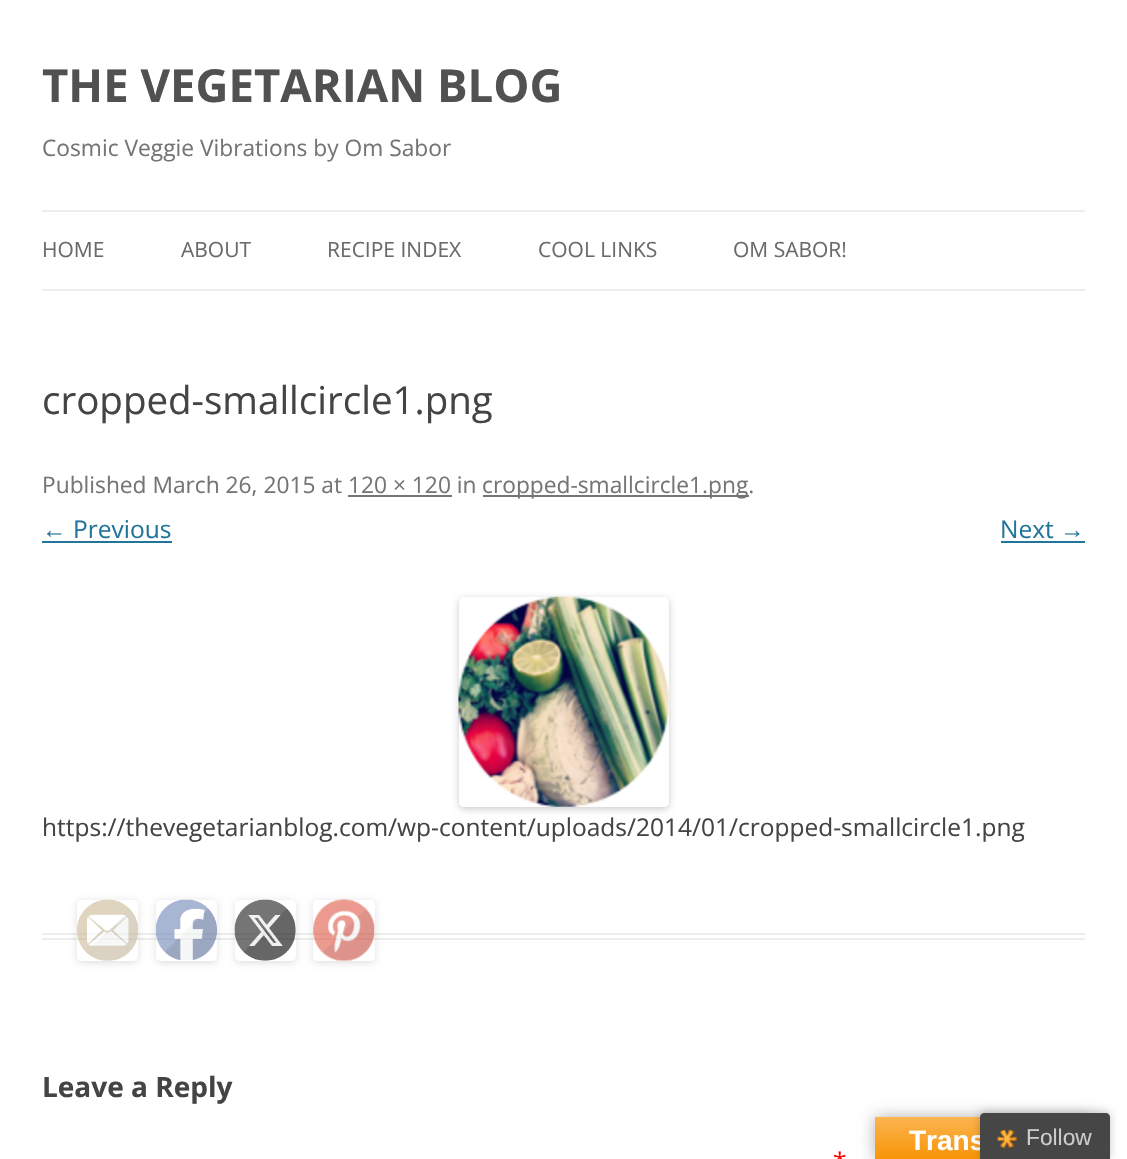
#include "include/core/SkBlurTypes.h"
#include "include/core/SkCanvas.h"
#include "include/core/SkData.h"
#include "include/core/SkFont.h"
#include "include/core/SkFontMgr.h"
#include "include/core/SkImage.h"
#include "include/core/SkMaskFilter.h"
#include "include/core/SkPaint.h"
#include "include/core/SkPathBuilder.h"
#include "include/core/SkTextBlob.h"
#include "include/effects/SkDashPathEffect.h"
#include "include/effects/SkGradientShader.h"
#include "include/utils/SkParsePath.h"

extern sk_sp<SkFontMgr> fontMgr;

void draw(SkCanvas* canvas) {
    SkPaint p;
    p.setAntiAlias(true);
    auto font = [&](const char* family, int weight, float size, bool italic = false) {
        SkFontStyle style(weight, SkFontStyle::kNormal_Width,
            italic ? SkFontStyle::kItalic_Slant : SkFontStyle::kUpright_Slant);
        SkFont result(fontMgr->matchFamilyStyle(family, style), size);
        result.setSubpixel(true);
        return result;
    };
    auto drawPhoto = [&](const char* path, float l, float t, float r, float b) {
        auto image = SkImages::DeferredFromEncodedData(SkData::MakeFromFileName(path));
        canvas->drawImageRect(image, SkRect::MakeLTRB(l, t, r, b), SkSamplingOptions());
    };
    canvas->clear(0xFFFFFFFF);
    auto font1 = font("Open Sans", 700, 45.5f);
    p.setColor(0xFF515151);
    canvas->drawString("THE VEGETARIAN BLOG", 42, 102, font1, p);
    auto font2 = font("Open Sans", 400, 22.75f);
    p.setColor(0xFF757575);
    canvas->drawString("Cosmic Veggie Vibrations by Om Sabor", 42, 156, font2, p);
    p.setColor(0xFFEDEDED);
    canvas->drawRect(SkRect::MakeLTRB(42, 210, 1085, 212), p);
    canvas->drawRect(SkRect::MakeLTRB(42, 289, 1085, 291), p);
    auto font3 = font("Open Sans", 400, 21);
    p.setColor(0xFF6A6A6A);
    {
        const struct { const char* s; float x, y; } items[] = {
            {"HOME", 42, 257},
            {"ABOUT", 181, 257},
            {"RECIPE INDEX", 327, 257},
            {"COOL LINKS", 538, 257},
            {"OM SABOR!", 733, 257},
        };
        for (auto [s, x, y] : items) {
            canvas->drawString(s, x, y, font3, p);
        }
    }
    p.setColor(0xFFEDEDED);
    canvas->drawRect(SkRect::MakeLTRB(42, 933, 1085, 935), p);
    canvas->drawRect(SkRect::MakeLTRB(42, 938, 1085, 940), p);
    auto font4 = font("Open Sans", 400, 38.5f);
    p.setColor(0xFF444444);
    canvas->drawString("cropped-smallcircle1.png", 42, 414, font4, p);
    p.setColor(0xFF757575);
    canvas->drawString("Published March 26, 2015 at 120 × 120 in", 42, 493, font2, p);
    canvas->drawRect(SkRect::MakeLTRB(483, 495, 749, 497), p);
    canvas->drawString("cropped-smallcircle1.png.", 482, 493, font2, p);
    canvas->drawRect(SkRect::MakeLTRB(348, 495, 452, 497), p);
    auto font5 = font("Liberation Sans", 400, 24.5f);
    p.setColor(0xFF21759B);
    canvas->drawString("←", 42, 538, font5, p);
    canvas->drawRect(SkRect::MakeLTRB(42, 541, 172, 543), p);
    auto font6 = font("Open Sans", 400, 24.5f);
    canvas->drawString("Previous", 73, 538, font6, p);
    canvas->drawString("Next", 1000, 538, font6, p);
    canvas->drawString("→", 1060, 538, font5, p);
    canvas->drawRect(SkRect::MakeLTRB(1001, 541, 1085, 543), p);
    canvas->save();
    canvas->clipPath(SkPathBuilder(SkPathFillType::kEvenOdd).moveTo(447, 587).lineTo(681, 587).lineTo(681, 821).lineTo(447, 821).close().moveTo(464, 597).lineTo(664, 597).cubicTo(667, 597, 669, 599, 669, 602).lineTo(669, 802).cubicTo(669, 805, 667, 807, 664, 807).lineTo(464, 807).cubicTo(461, 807, 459, 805, 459, 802).lineTo(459, 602).cubicTo(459, 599, 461, 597, 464, 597).close().detach(), true);
    p.setColor(0x33000000);
    p.setMaskFilter(SkMaskFilter::MakeBlur(kNormal_SkBlurStyle, 3.5f));
    canvas->drawRoundRect(SkRect::MakeLTRB(459, 599, 669, 809), 5, 5, p);
    p.setMaskFilter(nullptr);
    canvas->restore();
    drawPhoto("media/1.png", 458, 596, 669, 807);
    p.setColor(0xFF444444);
    canvas->drawString("https://thevegetarianblog.com/wp-content/uploads/2014/01/cropped-smallcircle1.png", 42, 836, font6, p);
    canvas->save();
    canvas->clipPath(SkPathBuilder(SkPathFillType::kEvenOdd).moveTo(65, 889).lineTo(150, 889).lineTo(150, 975).lineTo(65, 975).close().moveTo(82, 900).lineTo(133, 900).cubicTo(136, 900, 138, 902, 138, 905).lineTo(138, 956).cubicTo(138, 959, 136, 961, 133, 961).lineTo(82, 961).cubicTo(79, 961, 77, 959, 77, 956).lineTo(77, 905).cubicTo(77, 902, 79, 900, 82, 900).close().detach(), true);
    p.setColor(0x1F000000);
    p.setMaskFilter(SkMaskFilter::MakeBlur(kNormal_SkBlurStyle, 3.5f));
    canvas->drawRoundRect(SkRect::MakeLTRB(77, 901, 138, 963), 5, 5, p);
    p.setMaskFilter(nullptr);
    canvas->restore();
    drawPhoto("media/2.png", 77, 899, 138, 961);
    canvas->save();
    canvas->clipPath(SkPathBuilder(SkPathFillType::kEvenOdd).moveTo(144, 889).lineTo(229, 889).lineTo(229, 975).lineTo(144, 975).close().moveTo(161, 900).lineTo(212, 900).cubicTo(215, 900, 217, 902, 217, 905).lineTo(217, 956).cubicTo(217, 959, 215, 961, 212, 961).lineTo(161, 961).cubicTo(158, 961, 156, 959, 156, 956).lineTo(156, 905).cubicTo(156, 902, 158, 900, 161, 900).close().detach(), true);
    p.setMaskFilter(SkMaskFilter::MakeBlur(kNormal_SkBlurStyle, 3.5f));
    canvas->drawRoundRect(SkRect::MakeLTRB(156, 901, 217, 963), 5, 5, p);
    p.setMaskFilter(nullptr);
    canvas->restore();
    drawPhoto("media/3.png", 155, 899, 217, 960);
    canvas->save();
    canvas->clipPath(SkPathBuilder(SkPathFillType::kEvenOdd).moveTo(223, 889).lineTo(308, 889).lineTo(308, 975).lineTo(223, 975).close().moveTo(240, 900).lineTo(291, 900).cubicTo(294, 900, 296, 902, 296, 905).lineTo(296, 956).cubicTo(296, 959, 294, 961, 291, 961).lineTo(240, 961).cubicTo(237, 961, 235, 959, 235, 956).lineTo(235, 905).cubicTo(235, 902, 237, 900, 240, 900).close().detach(), true);
    p.setMaskFilter(SkMaskFilter::MakeBlur(kNormal_SkBlurStyle, 3.5f));
    canvas->drawRoundRect(SkRect::MakeLTRB(235, 901, 296, 963), 5, 5, p);
    p.setMaskFilter(nullptr);
    canvas->restore();
    drawPhoto("media/4.png", 234, 899, 296, 961);
    canvas->save();
    canvas->clipPath(SkPathBuilder(SkPathFillType::kEvenOdd).moveTo(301, 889).lineTo(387, 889).lineTo(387, 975).lineTo(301, 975).close().moveTo(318, 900).lineTo(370, 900).cubicTo(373, 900, 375, 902, 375, 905).lineTo(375, 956).cubicTo(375, 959, 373, 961, 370, 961).lineTo(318, 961).cubicTo(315, 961, 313, 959, 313, 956).lineTo(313, 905).cubicTo(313, 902, 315, 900, 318, 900).close().detach(), true);
    p.setMaskFilter(SkMaskFilter::MakeBlur(kNormal_SkBlurStyle, 3.5f));
    canvas->drawRoundRect(SkRect::MakeLTRB(313, 901, 375, 963), 5, 5, p);
    p.setMaskFilter(nullptr);
    canvas->restore();
    drawPhoto("media/5.png", 313, 899, 375, 961);
    auto font7 = font("Open Sans", 700, 28);
    p.setColor(0xFF444444);
    canvas->drawString("Leave a Reply", 42, 1097, font7, p);
    p.setColor(0xFFFF0000);
    canvas->drawString("*", 833, 1170, font6, p);
    p.setColor(0x4D000000);
    p.setMaskFilter(SkMaskFilter::MakeBlur(kNormal_SkBlurStyle, 8));
    canvas->drawRect(SkRect::MakeLTRB(875, 1117, 1092, 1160), p);
    p.setMaskFilter(nullptr);
    {
        const SkColor colors[] = {0xFFFBB450, 0xFFF89406};
        const float stops[] = {0, 1};
        const SkPoint ends[] = {{984, 1117}, {984, 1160}};
        p.setShader(SkGradientShader::MakeLinear(ends, colors, stops, 2, SkTileMode::kClamp));
        p.setAlpha(255);
    }
    canvas->drawRect(SkRect::MakeLTRB(875, 1117, 980, 1159), p);
    auto font8 = font("Liberation Sans", 700, 28);
    p.setShader(nullptr);
    p.setColor(0xFFFFFFFF);
    canvas->drawString("Trans", 909, 1150, font8, p);
    p.setColor(0x33000000);
    p.setMaskFilter(SkMaskFilter::MakeBlur(kNormal_SkBlurStyle, 4.5f));
    canvas->drawRoundRect(SkRect::MakeLTRB(980, 1111, 1110, 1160), 4, 4, p);
    p.setMaskFilter(nullptr);
    p.setColor(0xFF464646);
    canvas->drawPath(SkPathBuilder().moveTo(984, 1113).lineTo(1106, 1113).cubicTo(1108, 1113, 1110, 1115, 1110, 1117).lineTo(1110, 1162).lineTo(980, 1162).lineTo(980, 1117).cubicTo(980, 1115, 982, 1113, 984, 1113).close().detach(), p);
    drawPhoto("media/6.png", 997, 1129, 1017, 1148);
    auto font9 = font("Liberation Sans", 400, 22.75f);
    p.setColor(0xFFCCCCCC);
    canvas->drawString("Follow", 1026, 1145, font9, p);
}
